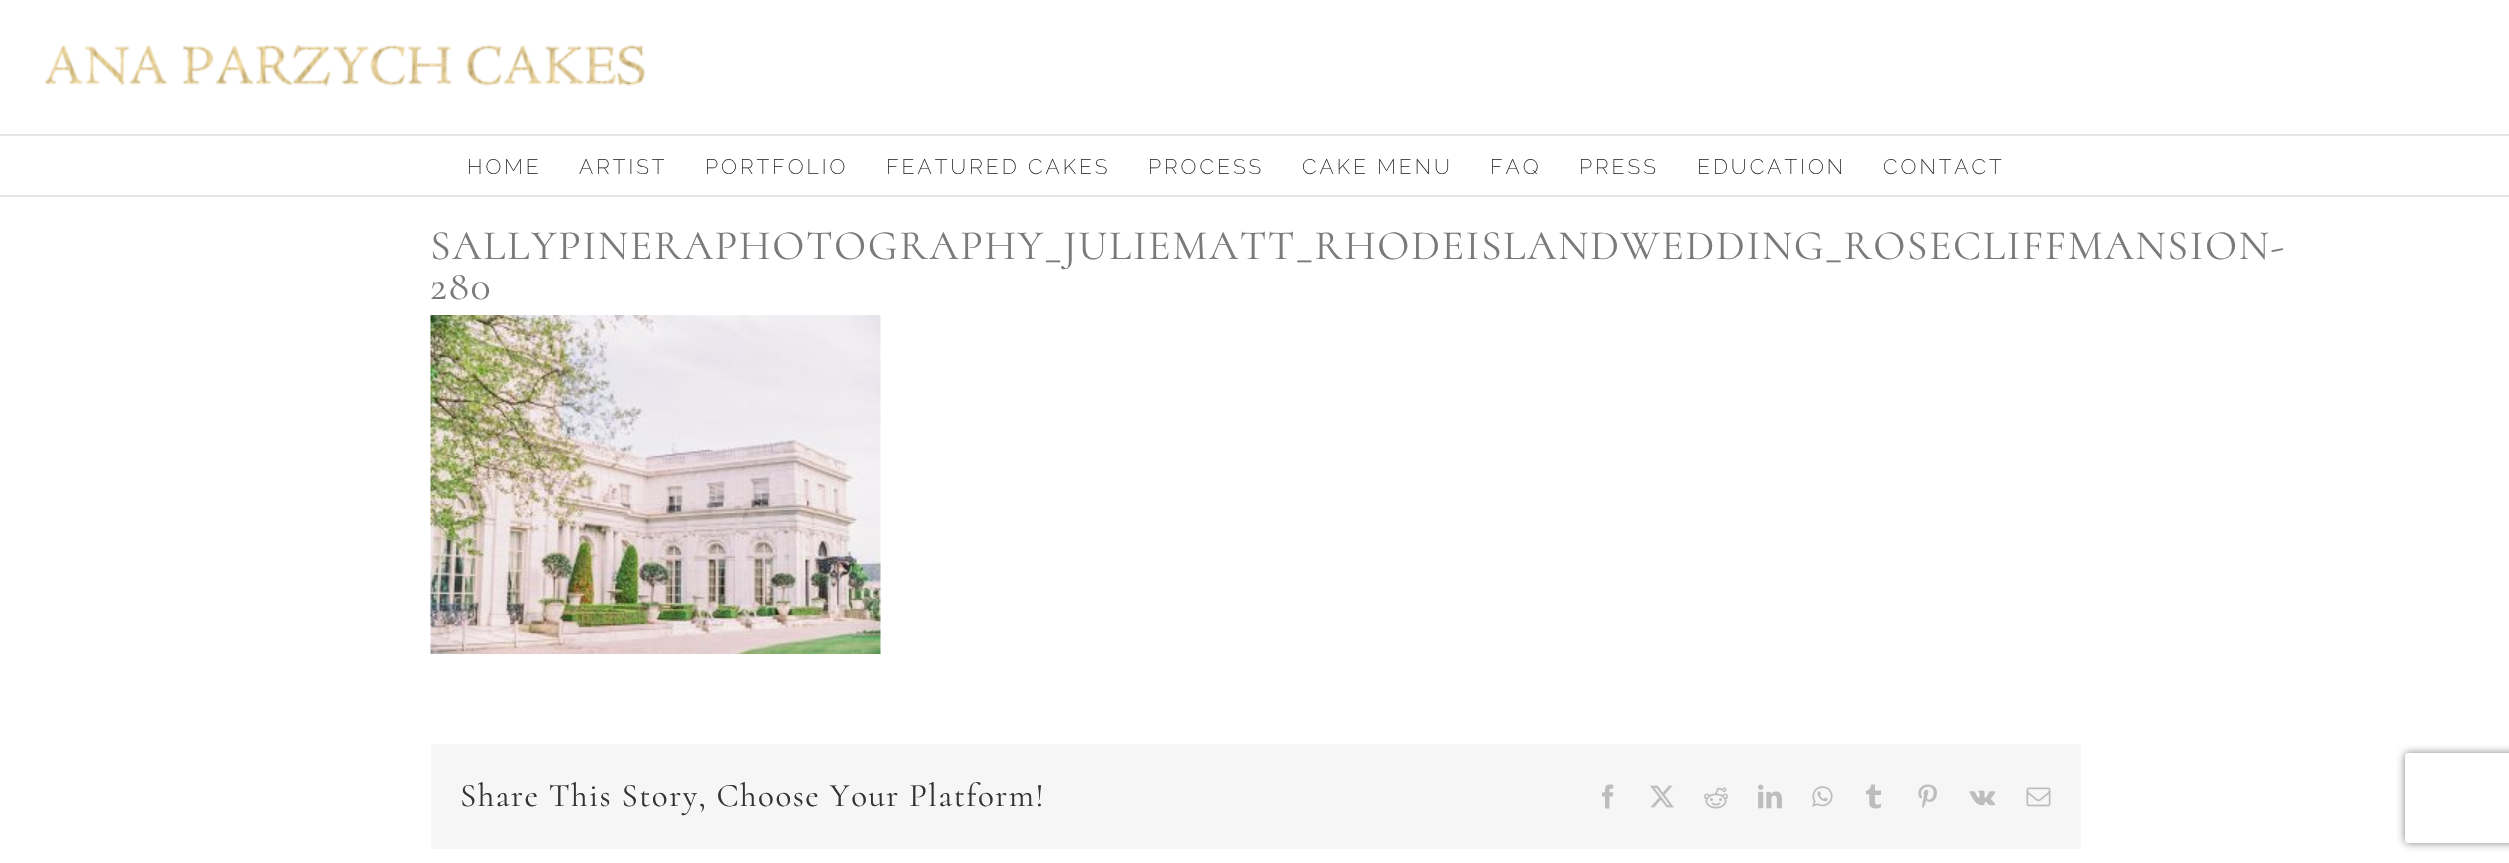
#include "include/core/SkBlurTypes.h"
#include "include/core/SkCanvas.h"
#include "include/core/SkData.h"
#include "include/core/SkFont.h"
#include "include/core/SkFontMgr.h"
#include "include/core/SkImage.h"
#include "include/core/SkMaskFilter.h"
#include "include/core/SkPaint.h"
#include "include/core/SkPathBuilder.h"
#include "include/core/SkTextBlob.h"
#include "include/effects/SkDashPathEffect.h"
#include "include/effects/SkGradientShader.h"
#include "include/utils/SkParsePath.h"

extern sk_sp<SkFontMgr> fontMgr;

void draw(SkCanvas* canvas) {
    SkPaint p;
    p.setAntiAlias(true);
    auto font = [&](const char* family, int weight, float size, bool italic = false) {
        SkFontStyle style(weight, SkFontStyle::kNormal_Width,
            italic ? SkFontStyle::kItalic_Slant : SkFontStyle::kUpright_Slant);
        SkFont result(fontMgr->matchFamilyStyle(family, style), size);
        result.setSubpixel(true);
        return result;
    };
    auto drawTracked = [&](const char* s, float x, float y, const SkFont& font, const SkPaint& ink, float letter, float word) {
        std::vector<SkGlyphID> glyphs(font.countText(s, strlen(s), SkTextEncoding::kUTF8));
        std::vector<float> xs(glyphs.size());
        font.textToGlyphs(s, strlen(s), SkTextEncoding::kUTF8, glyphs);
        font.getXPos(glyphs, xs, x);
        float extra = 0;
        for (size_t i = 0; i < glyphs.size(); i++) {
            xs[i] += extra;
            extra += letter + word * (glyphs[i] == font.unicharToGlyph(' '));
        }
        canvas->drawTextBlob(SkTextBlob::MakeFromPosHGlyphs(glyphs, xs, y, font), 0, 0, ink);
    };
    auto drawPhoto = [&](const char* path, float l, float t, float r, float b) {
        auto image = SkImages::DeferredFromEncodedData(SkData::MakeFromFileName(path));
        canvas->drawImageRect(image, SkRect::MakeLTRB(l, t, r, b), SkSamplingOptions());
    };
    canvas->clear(0xFFFFFFFF);
    p.setColor(0xFFE5E5E5);
    canvas->drawRect(SkRect::MakeLTRB(0, 134, 2509, 136), p);
    drawPhoto("media/1.png", 45, 45, 645, 86);
    canvas->drawRect(SkRect::MakeLTRB(0, 195, 2509, 197), p);
    auto font1 = font("Raleway", 100, 21);
    p.setColor(0xFF2D2D2D);
    {
        const struct { const char* s; float x, y; } items[] = {
            {"HOME", 467, 174},
            {"ARTIST", 579, 174},
            {"PORTFOLIO", 705, 174},
            {"FEATURED CAKES", 886, 174},
            {"PROCESS", 1148, 174},
            {"CAKE MENU", 1302, 174},
            {"FAQ", 1490, 174},
            {"PRESS", 1579, 174},
            {"EDUCATION", 1697, 174},
            {"CONTACT", 1883, 174},
        };
        for (auto [s, x, y] : items) {
            drawTracked(s, x, y, font1, p, 3, 0);
        }
    }
    auto font2 = font("Cormorant", 400, 42);
    p.setColor(0xFF7A7A7A);
    drawTracked("SALLYPINERAPHOTOGRAPHY_JULIEMATT_RHODEISLANDWEDDING_ROSECLIFFMANSION-", 430, 259, font2, p, 1.5f, 0);
    drawTracked("280", 430, 299, font2, p, 1.5f, 0);
    drawPhoto("media/2.png", 430, 315, 881, 654);
    p.setColor(0xFFF6F6F6);
    canvas->drawRect(SkRect::MakeLTRB(431, 744, 2081, 849), p);
    auto font3 = font("Cormorant", 400, 33);
    p.setColor(0xFF333333);
    drawTracked("Share This Story, Choose Your Platform!", 460, 806, font3, p, 1.5f, 0);
    drawPhoto("media/3.png", 1602, 784, 1614, 809);
    drawPhoto("media/4.png", 1650, 785, 1674, 808);
    drawPhoto("media/5.png", 1704, 787, 1728, 809);
    drawPhoto("media/6.png", 1758, 784, 1782, 809);
    drawPhoto("media/7.png", 1812, 786, 1833, 807);
    drawPhoto("media/8.png", 1866, 784, 1881, 809);
    drawPhoto("media/9.png", 1918, 784, 1937, 809);
    drawPhoto("media/10.png", 1969, 790, 1996, 806);
    drawPhoto("media/11.png", 2026, 787, 2051, 807);
    canvas->save();
    canvas->clipPath(SkPathBuilder(SkPathFillType::kEvenOdd).moveTo(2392, 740).lineTo(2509, 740).lineTo(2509, 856).lineTo(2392, 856).close().moveTo(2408, 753).lineTo(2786, 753).cubicTo(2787.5f, 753, 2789, 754.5f, 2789, 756).lineTo(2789, 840).cubicTo(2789, 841.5f, 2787.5f, 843, 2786, 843).lineTo(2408, 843).cubicTo(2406.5f, 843, 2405, 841.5f, 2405, 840).lineTo(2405, 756).cubicTo(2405, 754.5f, 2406.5f, 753, 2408, 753).close().detach(), true);
    p.setColor(0xFF808080);
    p.setMaskFilter(SkMaskFilter::MakeBlur(kNormal_SkBlurStyle, 4));
    canvas->drawRoundRect(SkRect::MakeLTRB(2405, 753, 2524, 843), 3, 3, p);
    p.setMaskFilter(nullptr);
    canvas->restore();
}
